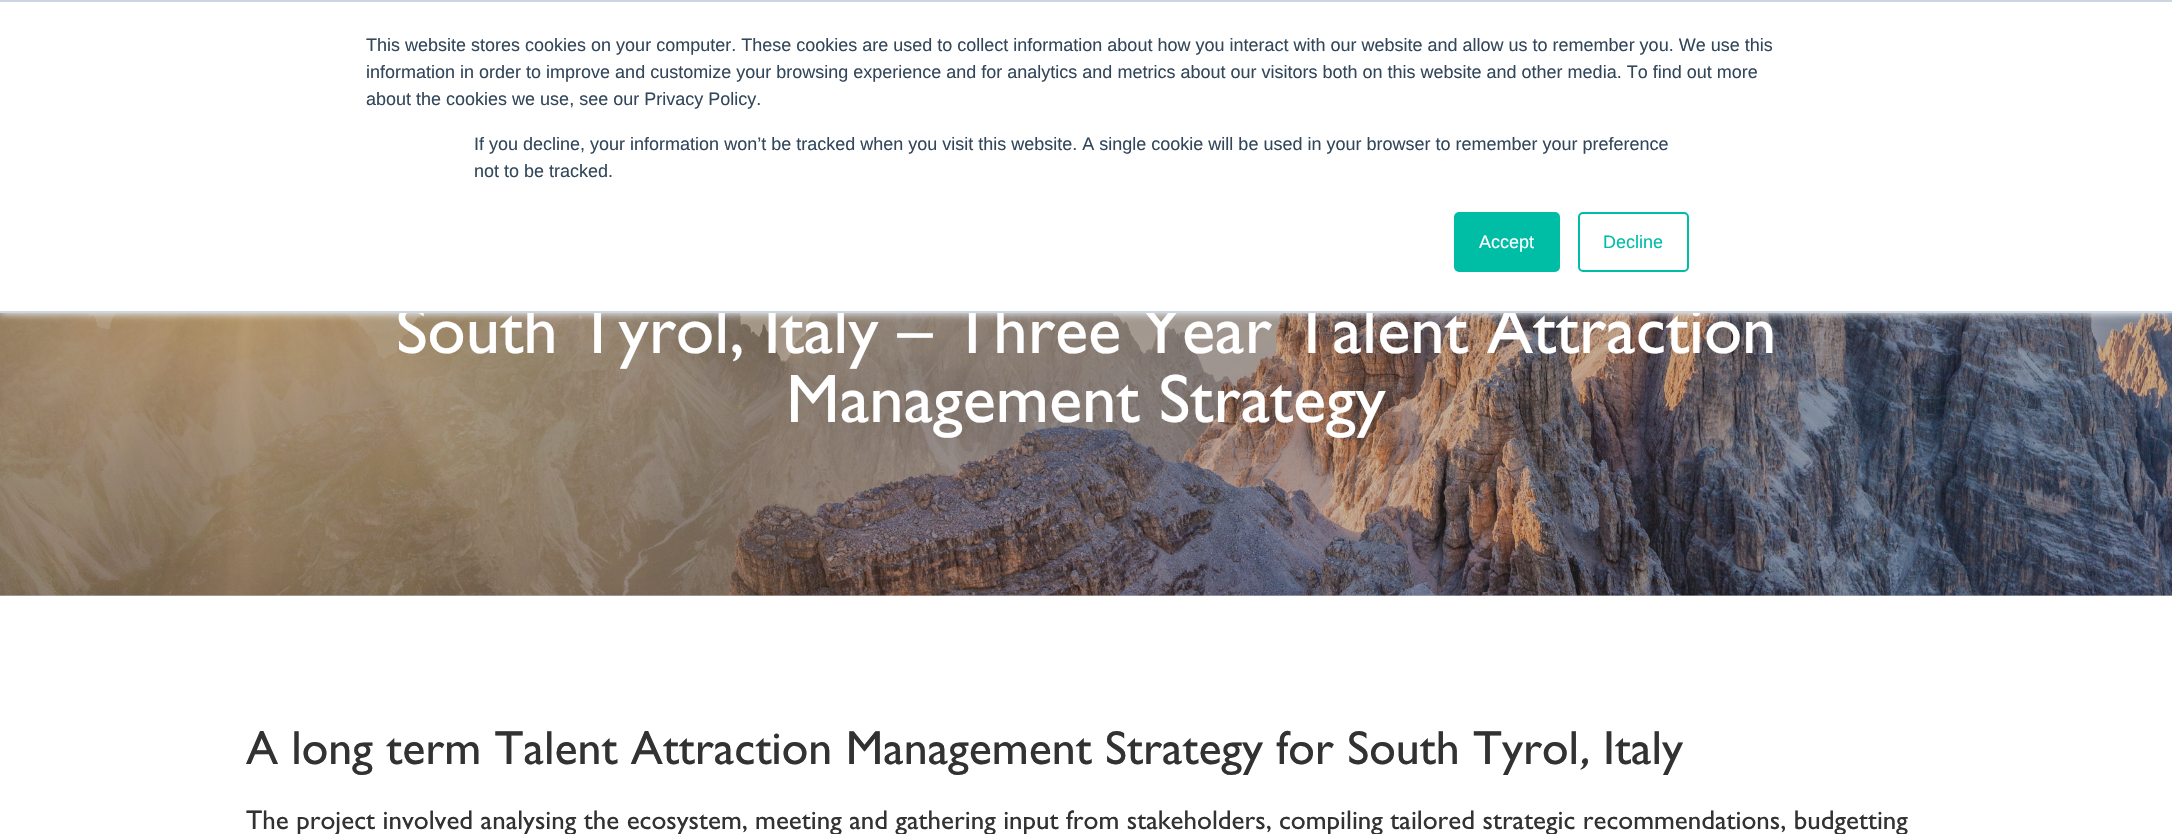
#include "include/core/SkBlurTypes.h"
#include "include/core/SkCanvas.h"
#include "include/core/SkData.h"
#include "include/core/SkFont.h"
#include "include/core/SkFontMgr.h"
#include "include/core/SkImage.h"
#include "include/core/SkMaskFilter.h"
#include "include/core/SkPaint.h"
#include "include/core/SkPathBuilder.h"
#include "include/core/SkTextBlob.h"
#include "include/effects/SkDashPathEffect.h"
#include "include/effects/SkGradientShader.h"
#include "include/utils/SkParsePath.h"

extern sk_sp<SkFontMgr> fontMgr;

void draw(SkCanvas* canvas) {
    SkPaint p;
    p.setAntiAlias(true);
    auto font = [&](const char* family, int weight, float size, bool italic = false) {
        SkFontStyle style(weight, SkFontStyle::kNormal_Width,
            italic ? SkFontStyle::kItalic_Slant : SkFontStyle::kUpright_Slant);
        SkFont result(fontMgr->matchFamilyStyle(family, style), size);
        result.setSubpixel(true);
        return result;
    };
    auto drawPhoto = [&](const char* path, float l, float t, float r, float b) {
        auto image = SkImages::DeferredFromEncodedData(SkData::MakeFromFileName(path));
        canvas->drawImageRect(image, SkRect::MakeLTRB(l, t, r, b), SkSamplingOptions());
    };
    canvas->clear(0xFFFFFFFF);
    p.setColor(0xFFC2C2C2);
    canvas->drawRect(SkRect::MakeLTRB(0, 595, 2172, 596), p);
    drawPhoto("media/1.png", 0, 313, 2172, 596);
    p.setColor(0xFFEAF0F6);
    p.setMaskFilter(SkMaskFilter::MakeBlur(kNormal_SkBlurStyle, 4));
    canvas->drawRect(SkRect::MakeLTRB(0, 2, 2172, 314), p);
    p.setMaskFilter(nullptr);
    p.setColor(0xFFFFFFFF);
    canvas->drawRect(SkRect::MakeLTRB(0, 2, 2172, 311), p);
    p.setColor(0xFFCBD6E2);
    canvas->drawRect(SkRect::MakeLTRB(0, 0, 2172, 2), p);
    auto font1 = font("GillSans", 100, 69);
    p.setColor(0xFFFFFFFF);
    canvas->drawString("South Tyrol, Italy – Three Year Talent Attraction", 396, 353, font1, p);
    p.setColor(0xFFCBD6E2);
    canvas->drawRect(SkRect::MakeLTRB(0, 311, 2172, 313), p);
    auto font2 = font("Liberation Sans", 400, 18);
    p.setColor(0xFF33475B);
    {
        const struct { const char* s; float x, y; } items[] = {
            {"This website stores cookies on your computer. These cookies are used to collect information about how you interact with our website and allow us to remember you. We use this", 366, 51},
            {"information in order to improve and customize your browsing experience and for analytics and metrics about our visitors both on this website and other media. To find out more", 366, 78},
            {"about the cookies we use, see our Privacy Policy.", 366, 105},
            {"If you decline, your information won’t be tracked when you visit this website. A single cookie will be used in your browser to remember your preference", 474, 150},
            {"not to be tracked.", 474, 177},
        };
        for (auto [s, x, y] : items) {
            canvas->drawString(s, x, y, font2, p);
        }
    }
    p.setColor(0xFF00BDA5);
    canvas->drawRoundRect(SkRect::MakeLTRB(1455, 213, 1559, 271), 4, 4, p);
    p.setStyle(SkPaint::kStroke_Style);
    p.setStrokeWidth(2);
    canvas->drawRoundRect(SkRect::MakeLTRB(1455, 213, 1559, 271), 4, 4, p);
    p.setStyle(SkPaint::kFill_Style);
    p.setColor(0xFFFFFFFF);
    canvas->drawString("Accept", 1479, 248, font2, p);
    p.setStyle(SkPaint::kStroke_Style);
    p.setColor(0xFF00BDA5);
    canvas->drawRoundRect(SkRect::MakeLTRB(1579, 213, 1688, 271), 4, 4, p);
    p.setStyle(SkPaint::kFill_Style);
    canvas->drawString("Decline", 1603, 248, font2, p);
    p.setColor(0xFFFFFFFF);
    canvas->drawString("Management Strategy", 786, 422, font1, p);
    auto font3 = font("GillSans", 100, 48);
    p.setColor(0xFF323232);
    canvas->drawString("A long term Talent Attraction Management Strategy for South Tyrol", 246, 764, font3, p);
    auto font4 = font("GillSans", 100, 48, true);
    canvas->drawString(",", 1579, 764, font4, p);
    canvas->drawString("Italy", 1603, 764, font3, p);
    auto font5 = font("GillSans", 100, 27);
    canvas->drawString("The project involved analysing the ecosystem, meeting and gathering input from stakeholders, compiling tailored strategic recommendations, budgetting", 246, 829, font5, p);
}
